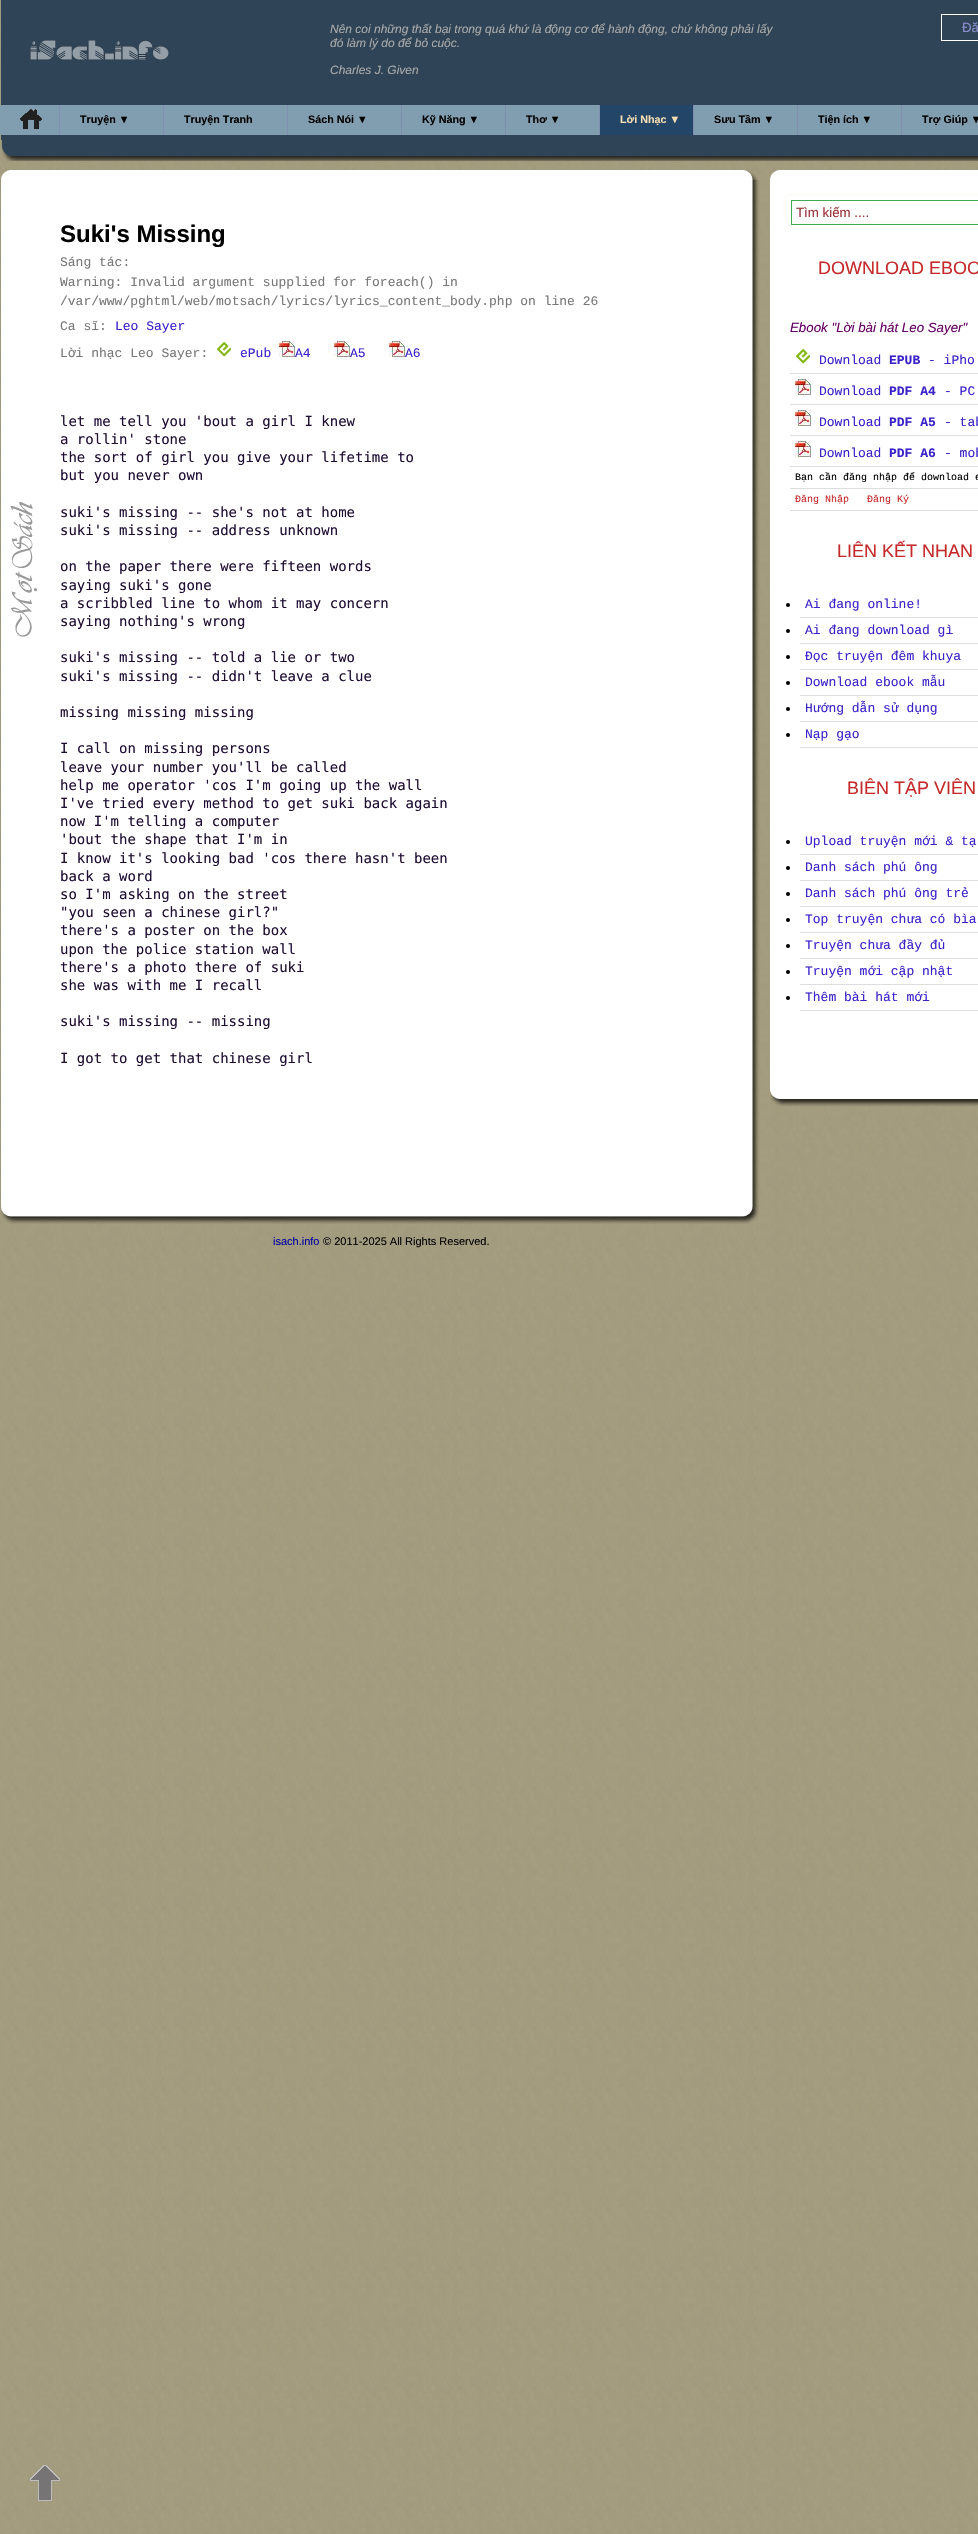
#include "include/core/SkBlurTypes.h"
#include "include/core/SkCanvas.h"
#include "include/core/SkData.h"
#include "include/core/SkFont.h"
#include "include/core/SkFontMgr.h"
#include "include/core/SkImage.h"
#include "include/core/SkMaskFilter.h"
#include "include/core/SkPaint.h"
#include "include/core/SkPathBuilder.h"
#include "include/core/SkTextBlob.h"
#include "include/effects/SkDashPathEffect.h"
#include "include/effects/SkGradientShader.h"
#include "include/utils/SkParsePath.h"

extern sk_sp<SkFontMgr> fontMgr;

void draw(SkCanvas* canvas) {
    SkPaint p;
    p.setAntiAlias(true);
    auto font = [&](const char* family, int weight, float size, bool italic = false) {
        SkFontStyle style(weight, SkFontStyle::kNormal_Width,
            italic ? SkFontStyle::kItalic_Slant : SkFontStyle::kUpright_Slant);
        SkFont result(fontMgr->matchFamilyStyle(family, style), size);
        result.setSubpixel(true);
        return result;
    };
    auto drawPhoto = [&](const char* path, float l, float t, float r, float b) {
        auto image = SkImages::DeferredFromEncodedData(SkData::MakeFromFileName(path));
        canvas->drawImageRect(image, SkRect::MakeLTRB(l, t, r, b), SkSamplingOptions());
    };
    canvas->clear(0xFFFFFFFF);
    drawPhoto("media/1.png", 0, 0, 978, 2534);
    p.setColor(0xFF2F4456);
    canvas->drawRect(SkRect::MakeLTRB(1, 0, 978, 140), p);
    drawPhoto("media/2.png", 30, 40, 169, 60);
    auto font1 = font("Liberation Sans", 400, 12, true);
    p.setColor(0xFFAAAAAA);
    {
        const struct { const char* s; float x, y; } items[] = {
            {"Nên coi những thất bại trong quá khứ là động cơ để hành động, chứ không phải lấy", 330, 33},
            {"đó làm lý do để bỏ cuộc.", 330, 47},
            {"Charles J. Given", 330, 74},
        };
        for (auto [s, x, y] : items) {
            canvas->drawString(s, x, y, font1, p);
        }
    }
    auto font2 = font("Liberation Sans", 400, 13.3f);
    p.setColor(0xFF8E8ECF);
    canvas->drawString("Đă", 962, 32, font2, p);
    {
        const struct { float l, t, r, b; SkColor color; } items[] = {
            {941, 14, 978, 15, 0xFFFFFFFF},
            {941, 40, 978, 41, 0xFFFFFFFF},
            {941, 14, 942, 41, 0xFFFFFFFF},
            {0, 105, 978, 135, 0xFF819EB1},
            {59, 105, 60, 135, 0xFF818DB1},
        };
        for (auto [l, t, r, b, color] : items) {
            p.setColor(color);
            canvas->drawRect(SkRect::MakeLTRB(l, t, r, b), p);
        }
    }
    drawPhoto("media/3.png", 20, 109, 42, 129);
    canvas->drawRect(SkRect::MakeLTRB(163, 105, 164, 135), p);
    auto font3 = font("Liberation Sans", 700, 10.75f);
    p.setColor(0xFF000000);
    canvas->drawString("Truyện ▼", 80, 123, font3, p);
    p.setColor(0xFF818DB1);
    canvas->drawRect(SkRect::MakeLTRB(287, 105, 288, 135), p);
    p.setColor(0xFF000000);
    canvas->drawString("Truyện Tranh", 184, 123, font3, p);
    p.setColor(0xFF818DB1);
    canvas->drawRect(SkRect::MakeLTRB(401, 105, 402, 135), p);
    p.setColor(0xFF000000);
    canvas->drawString("Sách Nói ▼", 308, 123, font3, p);
    p.setColor(0xFF818DB1);
    canvas->drawRect(SkRect::MakeLTRB(505, 105, 506, 135), p);
    p.setColor(0xFF000000);
    canvas->drawString("Kỹ Năng ▼", 422, 123, font3, p);
    p.setColor(0xFF818DB1);
    canvas->drawRect(SkRect::MakeLTRB(599, 105, 600, 135), p);
    p.setColor(0xFF000000);
    canvas->drawString("Thơ ▼", 526, 123, font3, p);
    p.setColor(0xFF234567);
    canvas->drawRect(SkRect::MakeLTRB(600, 105, 693, 135), p);
    p.setColor(0xFF818DB1);
    canvas->drawRect(SkRect::MakeLTRB(693, 105, 694, 135), p);
    p.setColor(0xFFF5DEB3);
    canvas->drawString("Lời Nhạc ▼", 620, 123, font3, p);
    p.setColor(0xFF818DB1);
    canvas->drawRect(SkRect::MakeLTRB(797, 105, 798, 135), p);
    p.setColor(0xFF000000);
    canvas->drawString("Sưu Tầm ▼", 714, 123, font3, p);
    p.setColor(0xFF818DB1);
    canvas->drawRect(SkRect::MakeLTRB(901, 105, 902, 135), p);
    p.setColor(0xFF000000);
    canvas->drawString("Tiện ích ▼", 818, 123, font3, p);
    canvas->drawString("Trợ Giúp ▼", 922, 123, font3, p);
    drawPhoto("media/4.png", 1, 140, 978, 161);
    drawPhoto("media/7.png", 0, 180, 760, 1207);
    drawPhoto("media/5.png", 10, 502, 37, 637);
    drawPhoto("media/6.png", 1, 170, 758, 180);
    auto font4 = font("Liberation Sans", 700, 24);
    canvas->drawString("Suki's Missing", 60, 242, font4, p);
    auto font5 = font("Liberation Mono", 400, 13);
    p.setColor(0xFF777777);
    {
        const struct { const char* s; float x, y; } items[] = {
            {"Sáng tác:", 60, 266},
            {"Warning: Invalid argument supplied for foreach() in", 60, 286},
            {"/var/www/pghtml/web/motsach/lyrics/lyrics_content_body.php on line 26", 60, 305},
            {"Ca sĩ:", 60, 330},
        };
        for (auto [s, x, y] : items) {
            canvas->drawString(s, x, y, font5, p);
        }
    }
    p.setColor(0xFF3923C9);
    canvas->drawString("Leo Sayer", 115, 330, font5, p);
    p.setColor(0xFF777777);
    canvas->drawString("Lời nhạc Leo Sayer:", 60, 357, font5, p);
    drawPhoto("media/8.png", 217, 342, 231, 357);
    p.setColor(0xFF3923C9);
    canvas->drawString("ePub", 240, 357, font5, p);
    drawPhoto("media/9.png", 279, 341, 295, 357);
    canvas->drawString("A4", 295, 357, font5, p);
    drawPhoto("media/9.png", 334, 341, 350, 357);
    canvas->drawString("A5", 350, 357, font5, p);
    drawPhoto("media/9.png", 389, 341, 405, 357);
    canvas->drawString("A6", 405, 357, font5, p);
    auto font6 = font("DejaVu Sans Mono", 400, 14);
    p.setColor(0xFF1F0D33);
    {
        const struct { const char* s; float x, y; } items[] = {
            {"let me tell you 'bout a girl I knew", 60, 426},
            {"a rollin' stone", 60, 444},
            {"the sort of girl you give your lifetime to", 60, 462},
            {"but you never own", 60, 480},
            {"suki's missing -- she's not at home", 60, 517},
            {"suki's missing -- address unknown", 60, 535},
            {"on the paper there were fifteen words", 60, 571},
            {"saying suki's gone", 60, 590},
            {"a scribbled line to whom it may concern", 60, 608},
            {"saying nothing's wrong", 60, 626},
            {"suki's missing -- told a lie or two", 60, 662},
            {"suki's missing -- didn't leave a clue", 60, 681},
            {"missing missing missing", 60, 717},
            {"I call on missing persons", 60, 753},
            {"leave your number you'll be called", 60, 772},
            {"help me operator 'cos I'm going up the wall", 60, 790},
            {"I've tried every method to get suki back again", 60, 808},
            {"now I'm telling a computer", 60, 826},
            {"'bout the shape that I'm in", 60, 844},
            {"I know it's looking bad 'cos there hasn't been", 60, 863},
            {"back a word", 60, 881},
            {"so I'm asking on the street", 60, 899},
            {"\"you seen a chinese girl?\"", 60, 917},
            {"there's a poster on the box", 60, 935},
            {"upon the police station wall", 60, 954},
            {"there's a photo there of suki", 60, 972},
            {"she was with me I recall", 60, 990},
            {"suki's missing -- missing", 60, 1026},
            {"I got to get that chinese girl", 60, 1063},
        };
        for (auto [s, x, y] : items) {
            canvas->drawString(s, x, y, font6, p);
        }
    }
    drawPhoto("media/10.png", 0, 1205, 759, 1224);
    auto font7 = font("Liberation Sans", 400, 11);
    p.setColor(0xFF0000A0);
    canvas->drawString("isach.info", 273, 1245, font7, p);
    p.setColor(0xFF000000);
    canvas->drawString("© 2011-2025 All Rights Reserved.", 323, 1245, font7, p);
    drawPhoto("media/11.png", 770, 170, 978, 180);
    p.setColor(0xFFFFFFFF);
    canvas->drawRect(SkRect::MakeLTRB(770, 180, 978, 1089), p);
    drawPhoto("media/12.png", 783, 193, 978, 224);
    p.setStyle(SkPaint::kStroke_Style);
    p.setStrokeWidth(1);
    p.setColor(0xFF42AA52);
    canvas->drawRect(SkRect::MakeLTRB(791.5f, 200.5f, 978.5f, 224.5f), p);
    p.setStyle(SkPaint::kFill_Style);
    p.setColor(0xFF99333A);
    canvas->drawString("Tìm kiếm ....", 796, 217, font2, p);
    auto font8 = font("Liberation Sans", 400, 18);
    p.setColor(0xFFC52929);
    canvas->drawString("DOWNLOAD EBOO", 818, 274, font8, p);
    auto font9 = font("Liberation Sans", 400, 13.3f, true);
    p.setColor(0xFF660066);
    canvas->drawString("Ebook \"Lời bài hát Leo Sayer\"", 790, 332, font9, p);
    p.setColor(0xFFDDDDDD);
    canvas->drawRect(SkRect::MakeLTRB(790, 373, 978, 374), p);
    drawPhoto("media/8.png", 796, 349, 810, 364);
    p.setColor(0xFF3923C9);
    canvas->drawString("Download", 819, 364, font5, p);
    auto font10 = font("Liberation Mono", 700, 13);
    canvas->drawString("EPUB", 889, 364, font10, p);
    canvas->drawString("- iPho", 928, 364, font5, p);
    p.setColor(0xFFDDDDDD);
    canvas->drawRect(SkRect::MakeLTRB(790, 404, 978, 405), p);
    drawPhoto("media/9.png", 795, 379, 811, 395);
    p.setColor(0xFF3923C9);
    canvas->drawString("Download", 819, 395, font5, p);
    canvas->drawString("PDF A4", 889, 395, font10, p);
    canvas->drawString("- PC", 944, 395, font5, p);
    p.setColor(0xFFDDDDDD);
    canvas->drawRect(SkRect::MakeLTRB(790, 435, 978, 436), p);
    drawPhoto("media/9.png", 795, 410, 811, 426);
    p.setColor(0xFF3923C9);
    canvas->drawString("Download", 819, 426, font5, p);
    canvas->drawString("PDF A5", 889, 426, font10, p);
    canvas->drawString("- tab", 944, 426, font5, p);
    p.setColor(0xFFDDDDDD);
    canvas->drawRect(SkRect::MakeLTRB(790, 466, 978, 467), p);
    drawPhoto("media/9.png", 795, 441, 811, 457);
    p.setColor(0xFF3923C9);
    canvas->drawString("Download", 819, 457, font5, p);
    canvas->drawString("PDF A6", 889, 457, font10, p);
    canvas->drawString("- mob", 944, 457, font5, p);
    p.setColor(0xFFDDDDDD);
    canvas->drawRect(SkRect::MakeLTRB(790, 488, 978, 489), p);
    auto font11 = font("Liberation Mono", 400, 10);
    p.setColor(0xFF000000);
    canvas->drawString("Bạn cần đăng nhập để download e", 795, 480, font11, p);
    p.setColor(0xFFDDDDDD);
    canvas->drawRect(SkRect::MakeLTRB(790, 510, 978, 511), p);
    p.setColor(0xFFC52929);
    canvas->drawString("Đăng Nhập", 795, 502, font11, p);
    canvas->drawString("Đăng Ký", 867, 502, font11, p);
    canvas->drawString("LIÊN KẾT NHAN", 837, 557, font8, p);
    p.setColor(0xFFDDDDDD);
    canvas->drawRect(SkRect::MakeLTRB(800, 617, 978, 618), p);
    p.setColor(0xFF000000);
    canvas->drawCircle(788, 605, 2, p);
    p.setColor(0xFF3923C9);
    canvas->drawString("Ai đang online!", 805, 608, font5, p);
    p.setColor(0xFFDDDDDD);
    canvas->drawRect(SkRect::MakeLTRB(800, 643, 978, 644), p);
    p.setColor(0xFF000000);
    canvas->drawCircle(788, 631, 2, p);
    p.setColor(0xFF3923C9);
    canvas->drawString("Ai đang download gì", 805, 634, font5, p);
    p.setColor(0xFFDDDDDD);
    canvas->drawRect(SkRect::MakeLTRB(800, 669, 978, 670), p);
    p.setColor(0xFF000000);
    canvas->drawCircle(788, 657, 2, p);
    p.setColor(0xFF3923C9);
    canvas->drawString("Đọc truyện đêm khuya", 805, 660, font5, p);
    p.setColor(0xFFDDDDDD);
    canvas->drawRect(SkRect::MakeLTRB(800, 695, 978, 696), p);
    p.setColor(0xFF000000);
    canvas->drawCircle(788, 683, 2, p);
    p.setColor(0xFF3923C9);
    canvas->drawString("Download ebook mẫu", 805, 686, font5, p);
    p.setColor(0xFFDDDDDD);
    canvas->drawRect(SkRect::MakeLTRB(800, 721, 978, 722), p);
    p.setColor(0xFF000000);
    canvas->drawCircle(788, 709, 2, p);
    p.setColor(0xFF3923C9);
    canvas->drawString("Hướng dẫn sử dụng", 805, 712, font5, p);
    p.setColor(0xFFDDDDDD);
    canvas->drawRect(SkRect::MakeLTRB(800, 747, 978, 748), p);
    p.setColor(0xFF000000);
    canvas->drawCircle(788, 735, 2, p);
    p.setColor(0xFF3923C9);
    canvas->drawString("Nạp gạo", 805, 738, font5, p);
    p.setColor(0xFFC52929);
    canvas->drawString("BIÊN TẬP VIÊN", 847, 794, font8, p);
    p.setColor(0xFFDDDDDD);
    canvas->drawRect(SkRect::MakeLTRB(800, 854, 978, 855), p);
    p.setColor(0xFF000000);
    canvas->drawCircle(788, 842, 2, p);
    p.setColor(0xFF3923C9);
    canvas->drawString("Upload truyện mới & tạ", 805, 845, font5, p);
    p.setColor(0xFFDDDDDD);
    canvas->drawRect(SkRect::MakeLTRB(800, 880, 978, 881), p);
    p.setColor(0xFF000000);
    canvas->drawCircle(788, 868, 2, p);
    p.setColor(0xFF3923C9);
    canvas->drawString("Danh sách phú ông", 805, 871, font5, p);
    p.setColor(0xFFDDDDDD);
    canvas->drawRect(SkRect::MakeLTRB(800, 906, 978, 907), p);
    p.setColor(0xFF000000);
    canvas->drawCircle(788, 894, 2, p);
    p.setColor(0xFF3923C9);
    canvas->drawString("Danh sách phú ông trẻ", 805, 897, font5, p);
    p.setColor(0xFFDDDDDD);
    canvas->drawRect(SkRect::MakeLTRB(800, 932, 978, 933), p);
    p.setColor(0xFF000000);
    canvas->drawCircle(788, 920, 2, p);
    p.setColor(0xFF3923C9);
    canvas->drawString("Top truyện chưa có bìa", 805, 923, font5, p);
    p.setColor(0xFFDDDDDD);
    canvas->drawRect(SkRect::MakeLTRB(800, 958, 978, 959), p);
    p.setColor(0xFF000000);
    canvas->drawCircle(788, 946, 2, p);
    p.setColor(0xFF3923C9);
    canvas->drawString("Truyện chưa đầy đủ", 805, 949, font5, p);
    p.setColor(0xFFDDDDDD);
    canvas->drawRect(SkRect::MakeLTRB(800, 984, 978, 985), p);
    p.setColor(0xFF000000);
    canvas->drawCircle(788, 972, 2, p);
    p.setColor(0xFF3923C9);
    canvas->drawString("Truyện mới cập nhật", 805, 975, font5, p);
    p.setColor(0xFFDDDDDD);
    canvas->drawRect(SkRect::MakeLTRB(800, 1010, 978, 1011), p);
    p.setColor(0xFF000000);
    canvas->drawCircle(788, 998, 2, p);
    p.setColor(0xFF3923C9);
    canvas->drawString("Thêm bài hát mới", 805, 1001, font5, p);
    drawPhoto("media/13.png", 770, 1089, 978, 1107);
    drawPhoto("media/14.png", 30, 2465, 60, 2501);
}
